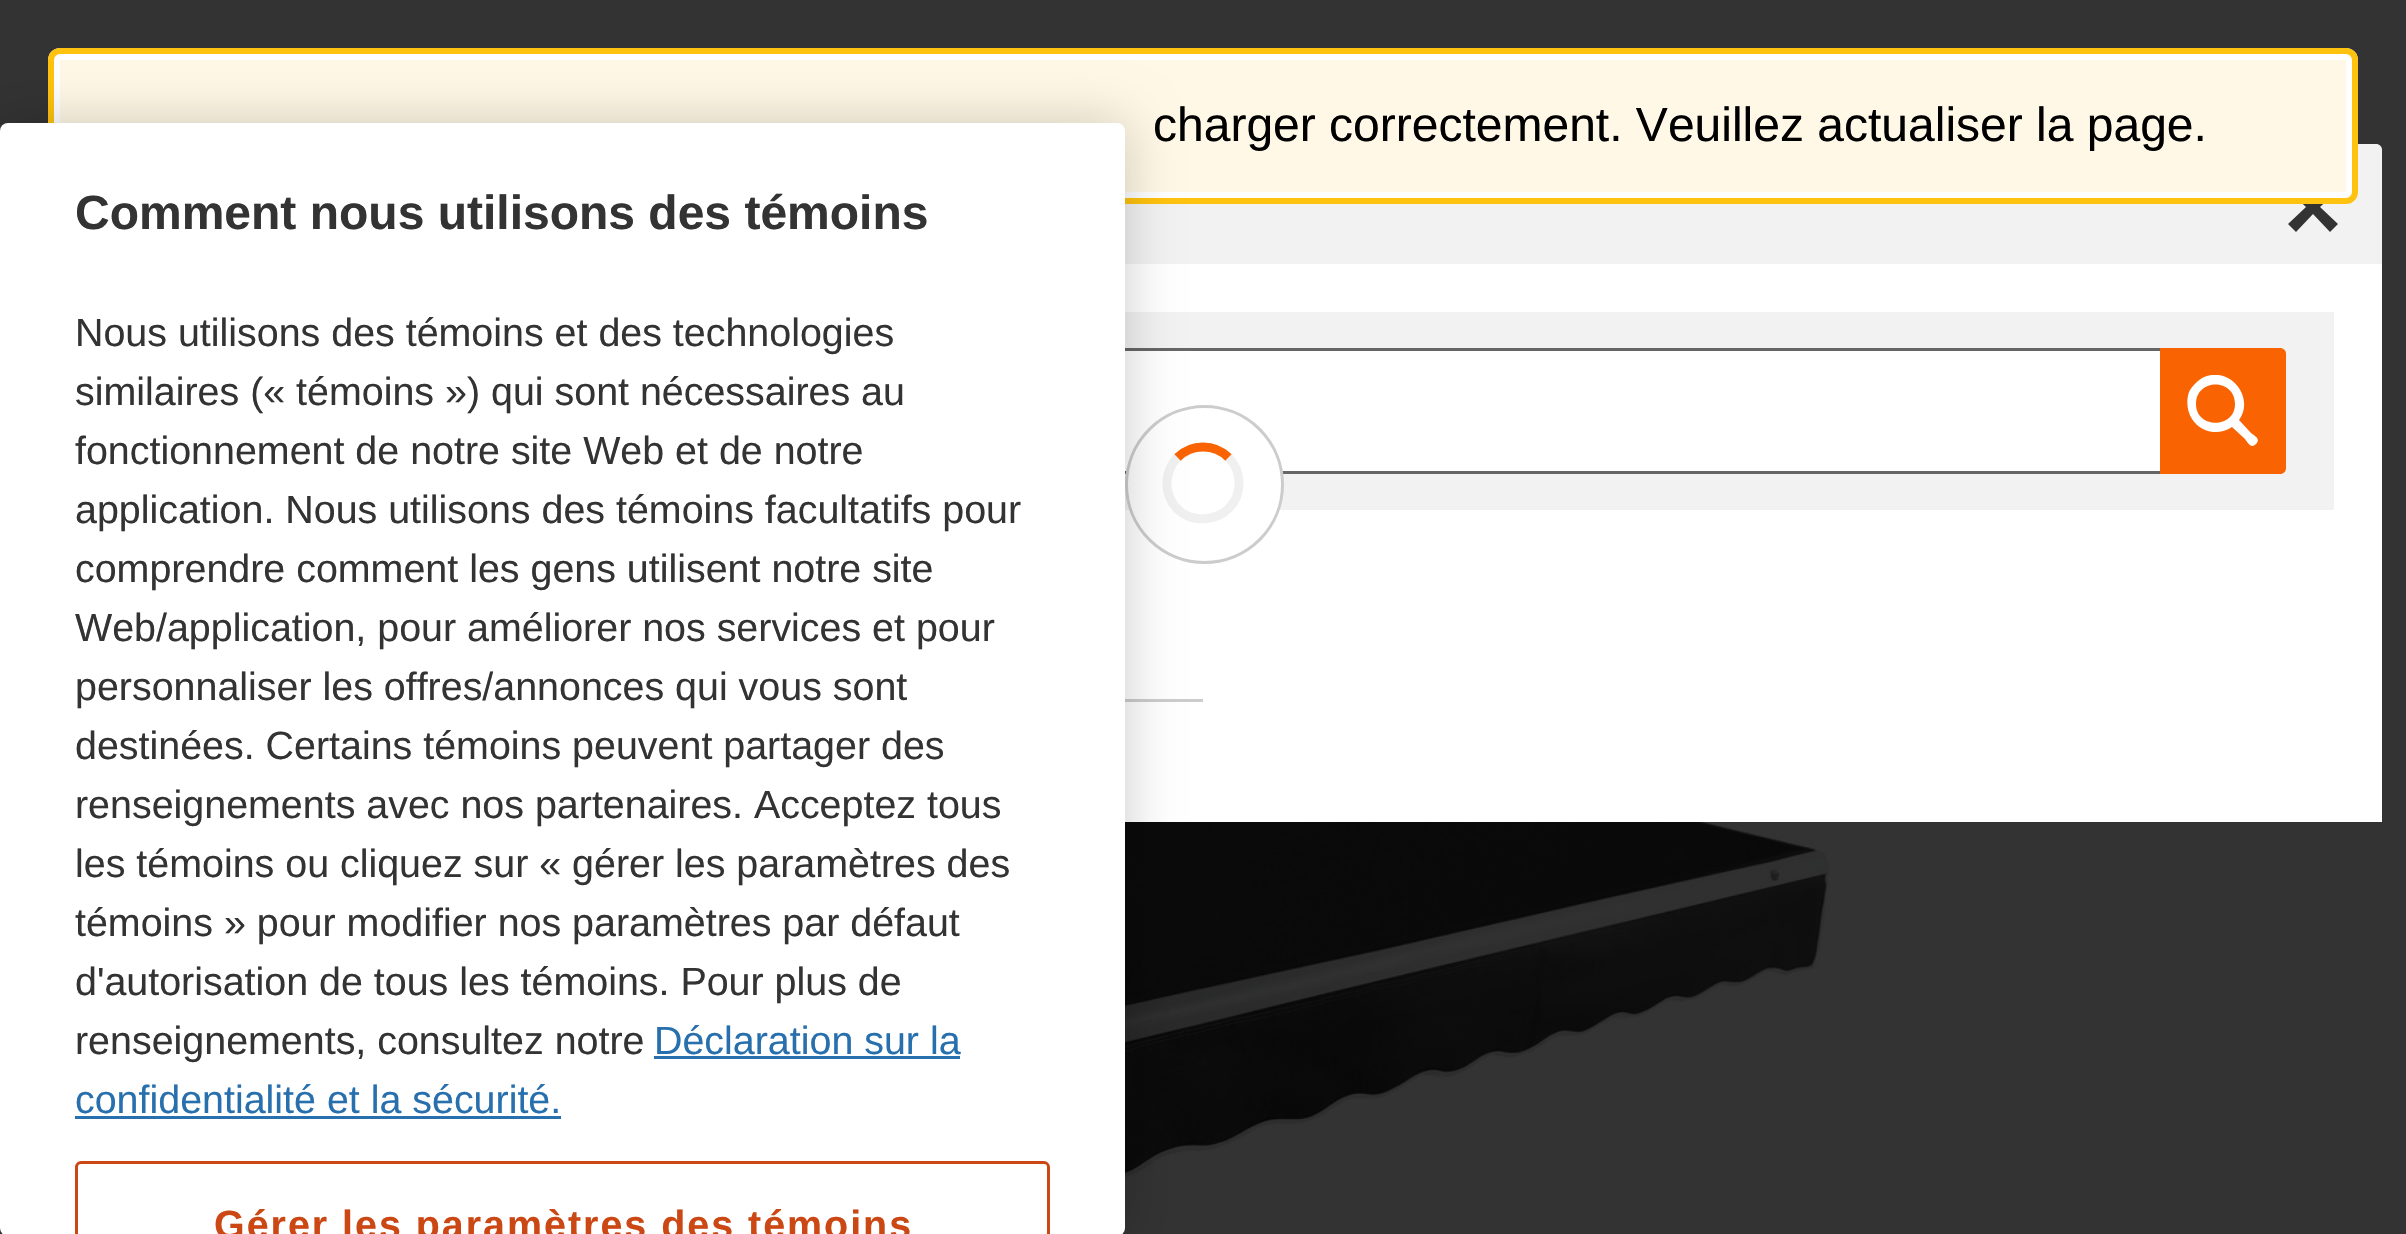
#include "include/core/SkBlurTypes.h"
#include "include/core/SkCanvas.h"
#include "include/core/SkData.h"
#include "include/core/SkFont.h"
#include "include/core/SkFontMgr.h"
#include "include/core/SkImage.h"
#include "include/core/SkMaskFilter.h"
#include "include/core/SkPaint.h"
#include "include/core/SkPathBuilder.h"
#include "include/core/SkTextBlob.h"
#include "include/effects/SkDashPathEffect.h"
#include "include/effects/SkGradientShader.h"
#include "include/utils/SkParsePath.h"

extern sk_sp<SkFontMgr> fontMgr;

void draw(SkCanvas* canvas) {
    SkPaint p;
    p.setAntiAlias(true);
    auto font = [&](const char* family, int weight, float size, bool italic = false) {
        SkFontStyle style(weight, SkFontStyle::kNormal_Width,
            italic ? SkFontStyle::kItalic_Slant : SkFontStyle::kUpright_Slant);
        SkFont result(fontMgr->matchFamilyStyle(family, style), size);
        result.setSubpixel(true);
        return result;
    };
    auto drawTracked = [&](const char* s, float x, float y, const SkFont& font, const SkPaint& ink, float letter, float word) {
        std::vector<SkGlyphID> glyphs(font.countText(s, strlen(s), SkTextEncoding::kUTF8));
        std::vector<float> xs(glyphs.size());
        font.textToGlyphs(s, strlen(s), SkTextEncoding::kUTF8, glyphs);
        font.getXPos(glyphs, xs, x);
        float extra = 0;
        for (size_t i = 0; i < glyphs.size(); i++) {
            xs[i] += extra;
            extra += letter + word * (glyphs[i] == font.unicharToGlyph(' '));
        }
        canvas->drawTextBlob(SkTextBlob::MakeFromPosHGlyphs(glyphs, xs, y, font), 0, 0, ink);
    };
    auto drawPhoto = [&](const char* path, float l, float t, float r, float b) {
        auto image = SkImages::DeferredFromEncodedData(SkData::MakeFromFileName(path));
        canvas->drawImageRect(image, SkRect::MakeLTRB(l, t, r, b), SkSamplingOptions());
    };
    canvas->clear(0xFF333333);
    p.setColor(0xFFF2F2F2);
    canvas->drawPath(SkPathBuilder().moveTo(30, 144).lineTo(2376, 144).cubicTo(2379.5f, 144, 2382, 146.5f, 2382, 150).lineTo(2382, 264).lineTo(24, 264).lineTo(24, 150).cubicTo(24, 146.5f, 26.5f, 144, 30, 144).close().detach(), p);
    p.setColor(0xFF333333);
    canvas->drawPath(SkPathBuilder(SkPathFillType::kEvenOdd).moveTo(2320, 207).lineTo(2338, 190).lineTo(2330, 182).lineTo(2313, 200).lineTo(2296, 182).lineTo(2288, 190).lineTo(2306, 207).lineTo(2288, 224).lineTo(2296, 232).lineTo(2313, 214).lineTo(2330, 232).lineTo(2338, 224).detach(), p);
    p.setColor(0xFFFFF8E6);
    canvas->drawRoundRect(SkRect::MakeLTRB(48, 48, 2358, 204), 12, 12, p);
    p.setStyle(SkPaint::kStroke_Style);
    p.setStrokeWidth(6);
    p.setColor(0xFFFFFFFF);
    canvas->drawRoundRect(SkRect::MakeLTRB(57, 57, 2349, 195), 3, 3, p);
    p.setColor(0xFFFFC20E);
    canvas->drawRoundRect(SkRect::MakeLTRB(51, 51, 2355, 201), 9, 9, p);
    auto font1 = font("Liberation Sans", 400, 48);
    p.setStyle(SkPaint::kFill_Style);
    p.setColor(0xFF000000);
    canvas->drawString("charger correctement. Veuillez actualiser la page.", 1153, 141, font1, p);
    {
        const struct { float l, t, r, b; SkColor color; } items[] = {
            {1125, 264, 2382, 822, 0xFFFFFFFF},
            {1125, 312, 2334, 510, 0xFFF2F2F2},
            {1125, 351, 2160, 471, 0xFFFFFFFF},
            {1125, 348, 2160, 351, 0xFF666666},
            {1125, 471, 2160, 474, 0xFF666666},
        };
        for (auto [l, t, r, b, color] : items) {
            p.setColor(color);
            canvas->drawRect(SkRect::MakeLTRB(l, t, r, b), p);
        }
    }
    p.setColor(0xFFF96302);
    canvas->drawPath(SkPathBuilder().moveTo(2160, 348).lineTo(2280, 348).cubicTo(2283.5f, 348, 2286, 350.5f, 2286, 354).lineTo(2286, 468).cubicTo(2286, 471.5f, 2283.5f, 474, 2280, 474).lineTo(2160, 474).close().detach(), p);
    canvas->save();
    canvas->clipRect(SkRect::MakeLTRB(2187, 375, 2259, 447));
    p.setColor(0xFFFFFFFF);
    canvas->drawPath(SkPathBuilder(SkPathFillType::kEvenOdd).moveTo(2239, 420).lineTo(2251, 433).cubicTo(2255, 436, 2261, 439, 2256, 444).cubicTo(2251, 449, 2248, 443, 2245, 439).lineTo(2232, 427).cubicTo(2219, 436, 2201, 433, 2192, 419).cubicTo(2187, 411, 2186, 401, 2189, 392).cubicTo(2192, 386, 2198, 380, 2204, 377).cubicTo(2231, 366, 2255, 398, 2239, 420).close().moveTo(2196, 404).cubicTo(2196, 429, 2235, 429, 2235, 404).cubicTo(2235, 378, 2196, 378, 2196, 404).close().detach(), p);
    canvas->restore();
    canvas->drawCircle(1204.5f, 484.5f, 78, p);
    p.setStyle(SkPaint::kStroke_Style);
    p.setStrokeWidth(3);
    p.setColor(0xFFCCCCCC);
    canvas->drawCircle(1204.5f, 484.5f, 78, p);
    p.setStrokeWidth(9);
    p.setColor(0xFFF96302);
    canvas->drawPath(SkPathBuilder().moveTo(1177.5f, 457.5f).cubicTo(1191.5f, 443.5f, 1214.5f, 443.5f, 1228.5f, 457.5f).detach(), p);
    p.setColor(0x4DCCCCCC);
    canvas->drawPath(SkPathBuilder().moveTo(1228.5f, 457.5f).cubicTo(1235, 464, 1239, 473.5f, 1239, 483).cubicTo(1239, 526, 1176, 532.5f, 1167.5f, 490).cubicTo(1165.5f, 478.5f, 1169, 466, 1177.5f, 457.5f).detach(), p);
    p.setStyle(SkPaint::kFill_Style);
    p.setColor(0xFFCCCCCC);
    canvas->drawRect(SkRect::MakeLTRB(1125, 699, 1203, 702), p);
    drawPhoto("media/1.png", 1125, 822, 1830, 1195);
    p.setColor(0x33000000);
    p.setMaskFilter(SkMaskFilter::MakeBlur(kNormal_SkBlurStyle, 27));
    canvas->drawRoundRect(SkRect::MakeLTRB(0, 123, 1125, 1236), 8, 8, p);
    p.setMaskFilter(nullptr);
    p.setColor(0xFFFFFFFF);
    canvas->drawRoundRect(SkRect::MakeLTRB(0, 123, 1125, 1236), 8, 8, p);
    auto font2 = font("Liberation Sans", 700, 48);
    p.setColor(0xFF333333);
    canvas->drawString("Comment nous utilisons des témoins", 75, 229, font2, p);
    auto font3 = font("Liberation Sans", 400, 39.4f);
    {
        const struct { const char* s; float x, y; } items[] = {
            {"Nous utilisons des témoins et des technologies", 75, 346},
            {"similaires (« témoins ») qui sont nécessaires au", 75, 405},
            {"fonctionnement de notre site Web et de notre", 75, 464},
            {"application. Nous utilisons des témoins facultatifs pour", 75, 523},
            {"comprendre comment les gens utilisent notre site", 75, 582},
            {"Web/application, pour améliorer nos services et pour", 75, 641},
            {"personnaliser les offres/annonces qui vous sont", 75, 700},
            {"destinées. Certains témoins peuvent partager des", 75, 759},
            {"renseignements avec nos partenaires. Acceptez tous", 75, 818},
            {"les témoins ou cliquez sur « gérer les paramètres des", 75, 877},
            {"témoins » pour modifier nos paramètres par défaut", 75, 936},
            {"d'autorisation de tous les témoins. Pour plus de", 75, 995},
            {"renseignements, consultez notre", 75, 1054},
        };
        for (auto [s, x, y] : items) {
            canvas->drawString(s, x, y, font3, p);
        }
    }
    p.setColor(0xFF286FAD);
    canvas->drawString("Déclaration sur la", 654, 1054, font3, p);
    canvas->drawRect(SkRect::MakeLTRB(654, 1056, 960, 1059), p);
    canvas->drawString("confidentialité et la sécurité.", 75, 1113, font3, p);
    canvas->drawRect(SkRect::MakeLTRB(75, 1116, 561, 1119), p);
    p.setColor(0xFFCB4814);
    canvas->drawPath(SkPathBuilder().moveTo(81, 1161).cubicTo(78, 1161, 75, 1164, 75, 1167).lineTo(75, 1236).lineTo(78, 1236).lineTo(78, 1167).cubicTo(78, 1165, 79, 1164, 81, 1164).lineTo(1044, 1164).cubicTo(1046, 1164, 1047, 1165, 1047, 1167).lineTo(1047, 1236).lineTo(1050, 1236).lineTo(1050, 1167).cubicTo(1050, 1164, 1047, 1161, 1044, 1161).close().detach(), p);
    auto font4 = font("Liberation Sans", 700, 39.4f);
    drawTracked("Gérer les paramètres des témoins", 214, 1238, font4, p, 2, 0);
}
